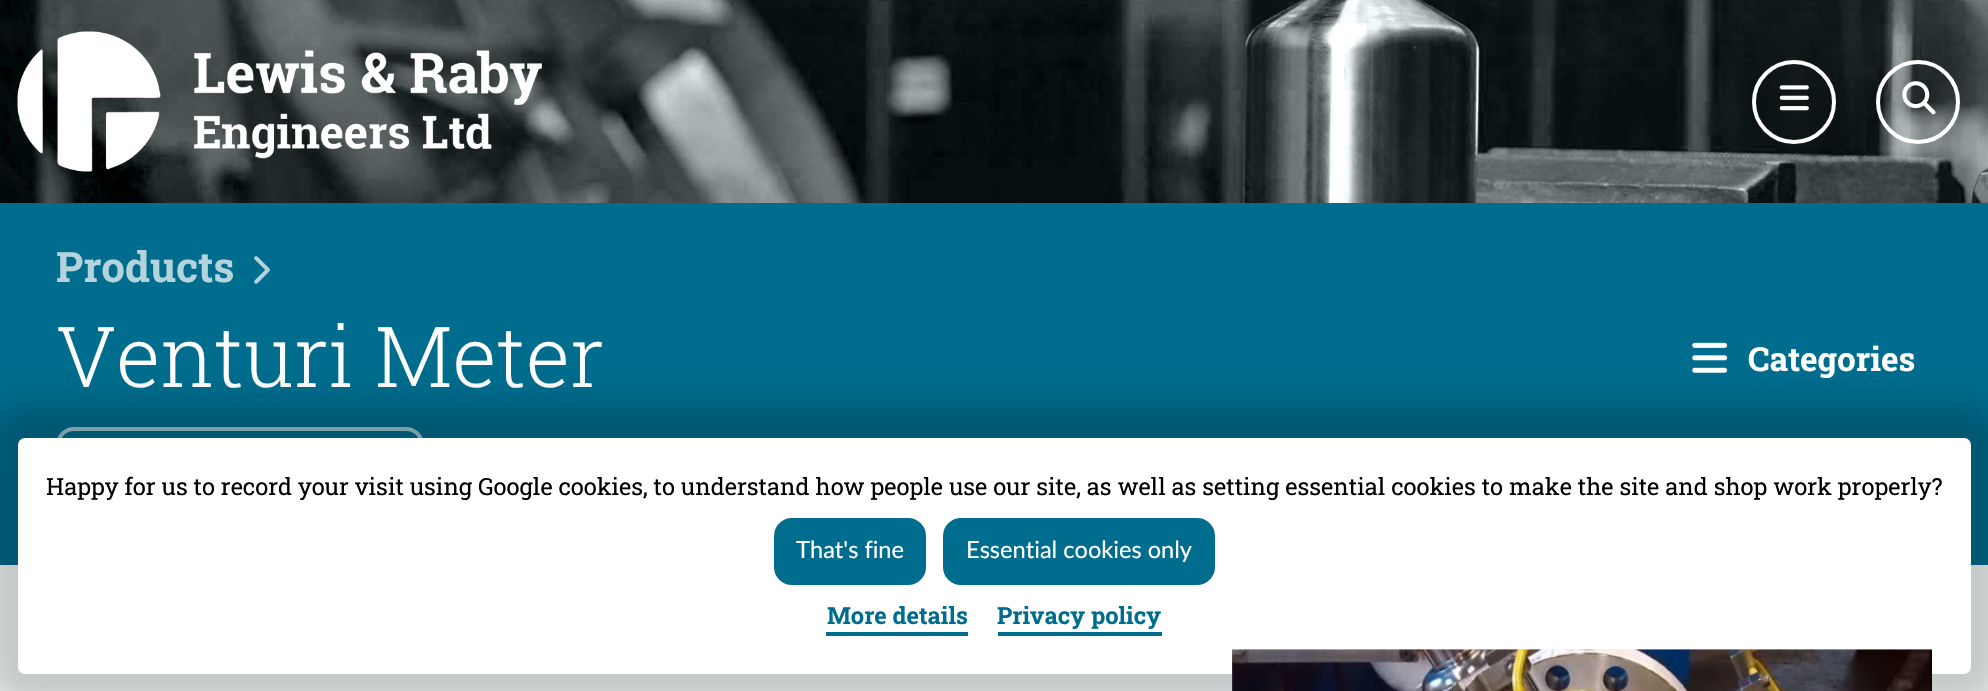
#include "include/core/SkBlurTypes.h"
#include "include/core/SkCanvas.h"
#include "include/core/SkData.h"
#include "include/core/SkFont.h"
#include "include/core/SkFontMgr.h"
#include "include/core/SkImage.h"
#include "include/core/SkMaskFilter.h"
#include "include/core/SkPaint.h"
#include "include/core/SkPathBuilder.h"
#include "include/core/SkTextBlob.h"
#include "include/effects/SkDashPathEffect.h"
#include "include/effects/SkGradientShader.h"
#include "include/utils/SkParsePath.h"

extern sk_sp<SkFontMgr> fontMgr;

void draw(SkCanvas* canvas) {
    SkPaint p;
    p.setAntiAlias(true);
    auto font = [&](const char* family, int weight, float size, bool italic = false) {
        SkFontStyle style(weight, SkFontStyle::kNormal_Width,
            italic ? SkFontStyle::kItalic_Slant : SkFontStyle::kUpright_Slant);
        SkFont result(fontMgr->matchFamilyStyle(family, style), size);
        result.setSubpixel(true);
        return result;
    };
    auto drawPhoto = [&](const char* path, float l, float t, float r, float b) {
        auto image = SkImages::DeferredFromEncodedData(SkData::MakeFromFileName(path));
        canvas->drawImageRect(image, SkRect::MakeLTRB(l, t, r, b), SkSamplingOptions());
    };
    canvas->clear(0xFFF8FBFC);
    drawPhoto("media/1.png", 0, 0, 1988, 203);
    drawPhoto("media/2.png", 17, 31, 542, 172);
    p.setStyle(SkPaint::kStroke_Style);
    p.setStrokeWidth(4);
    p.setColor(0xFFFFFFFF);
    canvas->drawCircle(1794, 102, 40, p);
    drawPhoto("media/3.png", 1779, 85, 1809, 111);
    canvas->drawCircle(1918, 102, 40, p);
    drawPhoto("media/4.png", 1902, 81, 1936, 115);
    p.setStyle(SkPaint::kFill_Style);
    p.setColor(0xFF006D8E);
    canvas->drawRect(SkRect::MakeLTRB(0, 203, 1988, 565), p);
    auto font1 = font("Roboto Slab", 700, 42);
    p.setColor(0xFFB3D3DD);
    canvas->drawString("Products", 56, 282, font1, p);
    drawPhoto("media/5.png", 254, 256, 270, 284);
    auto font2 = font("Roboto Slab", 300, 84);
    p.setColor(0xFFFFFFFF);
    canvas->drawString("Venturi Meter", 56, 387, font2, p);
    drawPhoto("media/6.png", 1692, 342, 1728, 373);
    auto font3 = font("Roboto Slab", 700, 33.25f);
    canvas->drawString("Categories", 1748, 371, font3, p);
    p.setStyle(SkPaint::kStroke_Style);
    p.setColor(0xFF99C5D2);
    canvas->drawRoundRect(SkRect::MakeLTRB(58, 429, 422, 518), 16, 16, p);
    p.setStyle(SkPaint::kFill_Style);
    p.setColor(0x33000000);
    p.setMaskFilter(SkMaskFilter::MakeBlur(kNormal_SkBlurStyle, 17.5f));
    canvas->drawRoundRect(SkRect::MakeLTRB(-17, 403, 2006, 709), 42, 42, p);
    p.setMaskFilter(nullptr);
    p.setColor(0xFFFFFFFF);
    canvas->drawRoundRect(SkRect::MakeLTRB(18, 438, 1971, 674), 7, 7, p);
    p.setColor(0xFFEEEEEE);
    canvas->drawRect(SkRect::MakeLTRB(1232, 649, 1932, 650), p);
    drawPhoto("media/7.png", 1232, 649, 1932, 691);
    auto font4 = font("Roboto Slab", 400, 23.62f);
    p.setColor(0xFF000000);
    canvas->drawString("Happy for us to record your visit using Google cookies, to understand how people use our site, as well as setting essential cookies to make the site and shop work properly?", 46, 495, font4, p);
    p.setColor(0xFF006D8E);
    canvas->drawRoundRect(SkRect::MakeLTRB(776, 520, 924, 583), 16, 16, p);
    p.setStyle(SkPaint::kStroke_Style);
    canvas->drawRoundRect(SkRect::MakeLTRB(776, 520, 924, 583), 16, 16, p);
    auto font5 = font("Lato", 400, 23.62f);
    p.setStyle(SkPaint::kFill_Style);
    p.setColor(0xFFFFFFFF);
    canvas->drawString("That's fine", 796, 558, font5, p);
    p.setColor(0xFF006D8E);
    canvas->drawRoundRect(SkRect::MakeLTRB(945, 520, 1213, 583), 16, 16, p);
    p.setStyle(SkPaint::kStroke_Style);
    canvas->drawRoundRect(SkRect::MakeLTRB(945, 520, 1213, 583), 16, 16, p);
    p.setStyle(SkPaint::kFill_Style);
    p.setColor(0xFFFFFFFF);
    canvas->drawString("Essential cookies only", 966, 558, font5, p);
    auto font6 = font("Roboto Slab", 700, 23.62f);
    p.setColor(0xFF006D8E);
    canvas->drawString("More details", 827, 624, font6, p);
    canvas->drawRect(SkRect::MakeLTRB(826, 632, 968, 636), p);
    canvas->drawString("Privacy policy", 997, 624, font6, p);
    canvas->drawRect(SkRect::MakeLTRB(998, 632, 1162, 636), p);
}
